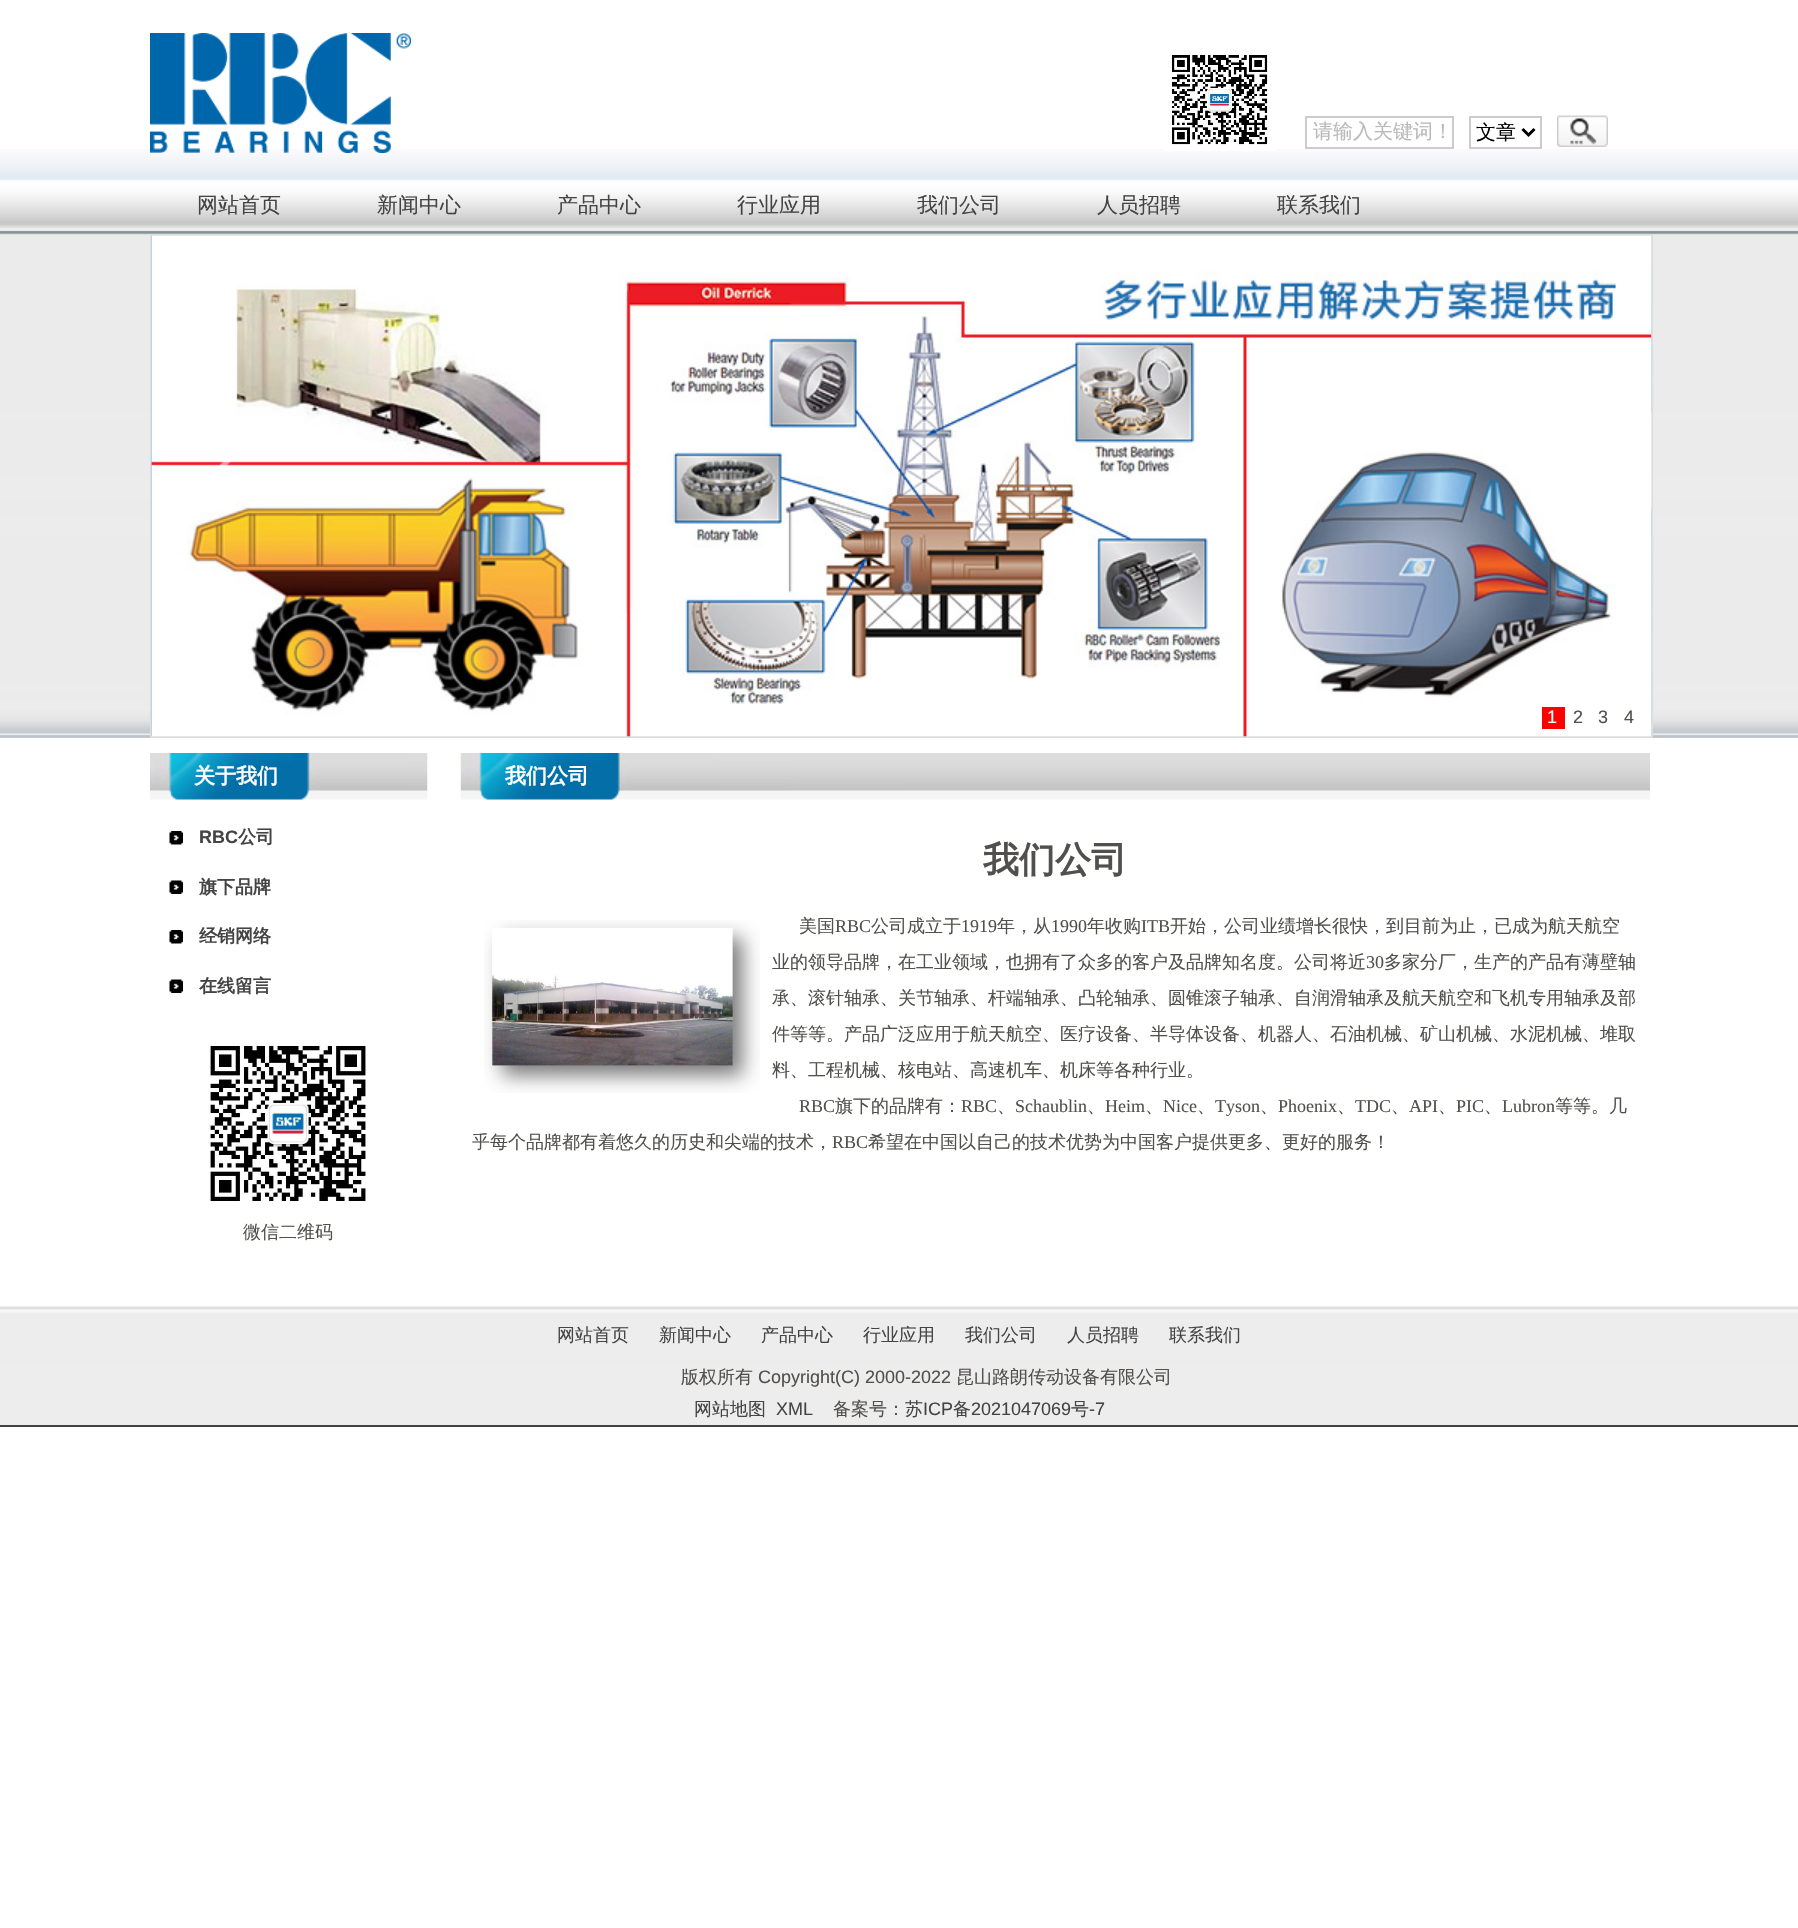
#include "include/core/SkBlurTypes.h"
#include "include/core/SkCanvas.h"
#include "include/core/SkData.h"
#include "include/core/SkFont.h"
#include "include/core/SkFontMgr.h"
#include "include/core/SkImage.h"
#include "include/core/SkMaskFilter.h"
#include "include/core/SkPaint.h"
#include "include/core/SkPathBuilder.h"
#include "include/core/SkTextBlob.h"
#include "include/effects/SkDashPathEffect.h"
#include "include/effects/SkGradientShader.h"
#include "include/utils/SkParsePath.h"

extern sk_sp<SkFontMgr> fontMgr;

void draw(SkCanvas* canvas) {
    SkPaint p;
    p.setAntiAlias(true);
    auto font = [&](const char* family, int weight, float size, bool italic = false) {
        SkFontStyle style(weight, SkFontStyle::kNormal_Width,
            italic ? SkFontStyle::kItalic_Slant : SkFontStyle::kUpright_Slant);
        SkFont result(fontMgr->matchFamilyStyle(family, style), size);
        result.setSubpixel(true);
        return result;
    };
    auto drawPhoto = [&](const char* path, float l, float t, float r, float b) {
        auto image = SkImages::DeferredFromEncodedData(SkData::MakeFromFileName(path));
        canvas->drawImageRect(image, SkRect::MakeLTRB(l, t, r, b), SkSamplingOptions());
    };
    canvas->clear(0xFFFFFFFF);
    drawPhoto("media/1.png", 0, 149, 1798, 738);
    drawPhoto("media/2.png", 150, 33, 411, 153);
    drawPhoto("media/3.png", 1164, 54, 1275, 151);
    p.setStyle(SkPaint::kStroke_Style);
    p.setStrokeWidth(2);
    p.setColor(0xFFCCCCCC);
    canvas->drawRect(SkRect::MakeLTRB(1306, 117, 1453, 148), p);
    auto font1 = font("WenQuanYi Zen Hei", 500, 20);
    p.setStyle(SkPaint::kFill_Style);
    p.setColor(0xFFB9B9B9);
    canvas->drawString("请输入关键词！", 1313, 138, font1, p);
    p.setStyle(SkPaint::kStroke_Style);
    p.setColor(0xFFCCCCCC);
    canvas->drawRect(SkRect::MakeLTRB(1470, 117, 1541, 148), p);
    p.setStrokeWidth(3);
    p.setColor(0xFF000000);
    canvas->drawPath(SkPathBuilder().moveTo(1522.5f, 129).lineTo(1528.5f, 135).lineTo(1534.5f, 129).detach(), p);
    p.setStyle(SkPaint::kFill_Style);
    canvas->drawString("文章", 1476, 139, font1, p);
    drawPhoto("media/4.png", 1557, 115, 1608, 147);
    auto font2 = font("WenQuanYi Zen Hei", 500, 21);
    p.setColor(0xFF444444);
    {
        const struct { const char* s; float x, y; } items[] = {
            {"网站首页", 197, 212},
            {"新闻中心", 377, 212},
            {"产品中心", 557, 212},
            {"行业应用", 737, 212},
            {"我们公司", 917, 212},
            {"人员招聘", 1097, 212},
            {"联系我们", 1277, 212},
        };
        for (auto [s, x, y] : items) {
            canvas->drawString(s, x, y, font2, p);
        }
    }
    p.setStyle(SkPaint::kStroke_Style);
    p.setStrokeWidth(2);
    p.setColor(0xFFDDDDDD);
    canvas->drawRect(SkRect::MakeLTRB(151, 235, 1652, 737), p);
    drawPhoto("media/5.png", 151, 235, 152, 737);
    drawPhoto("media/6.png", 151, 235, 1652, 737);
    drawPhoto("media/7.png", 1651, 236, 1652, 737);
    drawPhoto("media/8.png", 219, 461, 231, 466);
    p.setStyle(SkPaint::kFill_Style);
    p.setColor(0xFFFF0000);
    canvas->drawRect(SkRect::MakeLTRB(1542, 707, 1565, 729), p);
    auto font3 = font("Liberation Sans", 400, 18);
    p.setColor(0xFFFFFFFF);
    canvas->drawString("1", 1547, 723, font3, p);
    p.setColor(0xFF51504D);
    {
        const struct { const char* s; float x, y; } items[] = {
            {"2", 1573, 723},
            {"3", 1598, 723},
            {"4", 1624, 723},
        };
        for (auto [s, x, y] : items) {
            canvas->drawString(s, x, y, font3, p);
        }
    }
    drawPhoto("media/9.png", 150, 753, 428, 800);
    auto font4 = font("WenQuanYi Zen Hei", 700, 21);
    p.setColor(0xFFFFFFFF);
    canvas->drawString("关于我们", 194, 783, font4, p);
    drawPhoto("media/10.png", 169, 831, 183, 845);
    auto font5 = font("Liberation Sans", 700, 18);
    p.setColor(0xFF444444);
    canvas->drawString("RBC", 199, 843, font5, p);
    auto font6 = font("WenQuanYi Zen Hei", 700, 18);
    canvas->drawString("公司", 238, 843, font6, p);
    drawPhoto("media/11.png", 169, 880, 183, 894);
    canvas->drawString("旗下品牌", 199, 893, font6, p);
    drawPhoto("media/10.png", 169, 930, 183, 944);
    canvas->drawString("经销网络", 199, 942, font6, p);
    drawPhoto("media/11.png", 169, 979, 183, 993);
    canvas->drawString("在线留言", 199, 992, font6, p);
    drawPhoto("media/12.png", 208, 1044, 366, 1201);
    auto font7 = font("WenQuanYi Zen Hei", 500, 18);
    p.setColor(0xFF51504D);
    canvas->drawString("微信二维码", 243, 1238, font7, p);
    drawPhoto("media/13.png", 460, 753, 1650, 800);
    p.setColor(0xFFFFFFFF);
    canvas->drawString("我们公司", 505, 783, font4, p);
    auto font8 = font("WenQuanYi Zen Hei", 700, 36);
    p.setColor(0xFF51504D);
    canvas->drawString("我们公司", 983, 872, font8, p);
    drawPhoto("media/14.png", 484, 920, 760, 1093);
    canvas->drawString("美国", 799, 932, font7, p);
    auto font9 = font("Liberation Serif", 400, 18);
    canvas->drawString("RBC", 835, 932, font9, p);
    canvas->drawString("公司成立于", 871, 932, font7, p);
    canvas->drawString("1919", 961, 932, font9, p);
    canvas->drawString("年，从", 997, 932, font7, p);
    canvas->drawString("1990", 1051, 932, font9, p);
    canvas->drawString("年收购", 1087, 932, font7, p);
    canvas->drawString("ITB", 1141, 932, font9, p);
    canvas->drawString("开始，公司业绩增长很快，到目前为止，已成为航天航空", 1170, 932, font7, p);
    canvas->drawString("业的领导品牌，在工业领域，也拥有了众多的客户及品牌知名度。公司将近", 772, 968, font7, p);
    canvas->drawString("30", 1366, 968, font9, p);
    {
        const struct { const char* s; float x, y; } items[] = {
            {"多家分厂，生产的产品有薄壁轴", 1384, 968},
            {"承、滚针轴承、关节轴承、杆端轴承、凸轮轴承、圆锥滚子轴承、自润滑轴承及航天航空和飞机专用轴承及部", 772, 1004},
            {"件等等。产品广泛应用于航天航空、医疗设备、半导体设备、机器人、石油机械、矿山机械、水泥机械、堆取", 772, 1040},
            {"料、工程机械、核电站、高速机车、机床等各种行业。", 772, 1076},
        };
        for (auto [s, x, y] : items) {
            canvas->drawString(s, x, y, font7, p);
        }
    }
    canvas->drawString("RBC", 799, 1112, font9, p);
    canvas->drawString("旗下的品牌有：", 835, 1112, font7, p);
    canvas->drawString("RBC", 961, 1112, font9, p);
    canvas->drawString("、", 997, 1112, font7, p);
    canvas->drawString("Schaublin", 1015, 1112, font9, p);
    canvas->drawString("、", 1087, 1112, font7, p);
    canvas->drawString("Heim", 1105, 1112, font9, p);
    canvas->drawString("、", 1145, 1112, font7, p);
    canvas->drawString("Nice", 1163, 1112, font9, p);
    canvas->drawString("、", 1197, 1112, font7, p);
    canvas->drawString("Tyson", 1215, 1112, font9, p);
    canvas->drawString("、", 1260, 1112, font7, p);
    canvas->drawString("Phoenix", 1278, 1112, font9, p);
    canvas->drawString("、", 1337, 1112, font7, p);
    canvas->drawString("TDC", 1355, 1112, font9, p);
    canvas->drawString("、", 1391, 1112, font7, p);
    canvas->drawString("API", 1409, 1112, font9, p);
    canvas->drawString("、", 1438, 1112, font7, p);
    canvas->drawString("PIC", 1456, 1112, font9, p);
    canvas->drawString("、", 1484, 1112, font7, p);
    canvas->drawString("Lubron", 1502, 1112, font9, p);
    canvas->drawString("等等。几", 1555, 1112, font7, p);
    canvas->drawString("乎每个品牌都有着悠久的历史和尖端的技术，", 472, 1148, font7, p);
    canvas->drawString("RBC", 832, 1148, font9, p);
    canvas->drawString("希望在中国以自己的技术优势为中国客户提供更多、更好的服务！", 868, 1148, font7, p);
    p.setColor(0xFF424242);
    canvas->drawRect(SkRect::MakeLTRB(0, 1425, 1798, 1427), p);
    drawPhoto("media/15.png", 0, 1306, 1798, 1425);
    p.setColor(0xFF444444);
    {
        const struct { const char* s; float x, y; } items[] = {
            {"网站首页", 557, 1341},
            {"新闻中心", 659, 1341},
            {"产品中心", 761, 1341},
            {"行业应用", 863, 1341},
            {"我们公司", 965, 1341},
            {"人员招聘", 1067, 1341},
            {"联系我们", 1169, 1341},
        };
        for (auto [s, x, y] : items) {
            canvas->drawString(s, x, y, font7, p);
        }
    }
    p.setColor(0xFF51504D);
    canvas->drawString("版权所有", 681, 1383, font7, p);
    canvas->drawString("Copyright(C) 2000-2022", 758, 1383, font3, p);
    canvas->drawString("昆山路朗传动设备有限公司", 956, 1383, font7, p);
    p.setColor(0xFF444444);
    canvas->drawString("网站地图", 694, 1415, font7, p);
    canvas->drawString("XML", 776, 1415, font3, p);
    p.setColor(0xFF51504D);
    canvas->drawString("备案号：", 833, 1415, font7, p);
    p.setColor(0xFF444444);
    canvas->drawString("苏", 905, 1415, font7, p);
    canvas->drawString("ICP", 923, 1415, font3, p);
    canvas->drawString("备", 953, 1415, font7, p);
    canvas->drawString("2021047069", 971, 1415, font3, p);
    canvas->drawString("号", 1071, 1415, font7, p);
    canvas->drawString("-7", 1089, 1415, font3, p);
}
